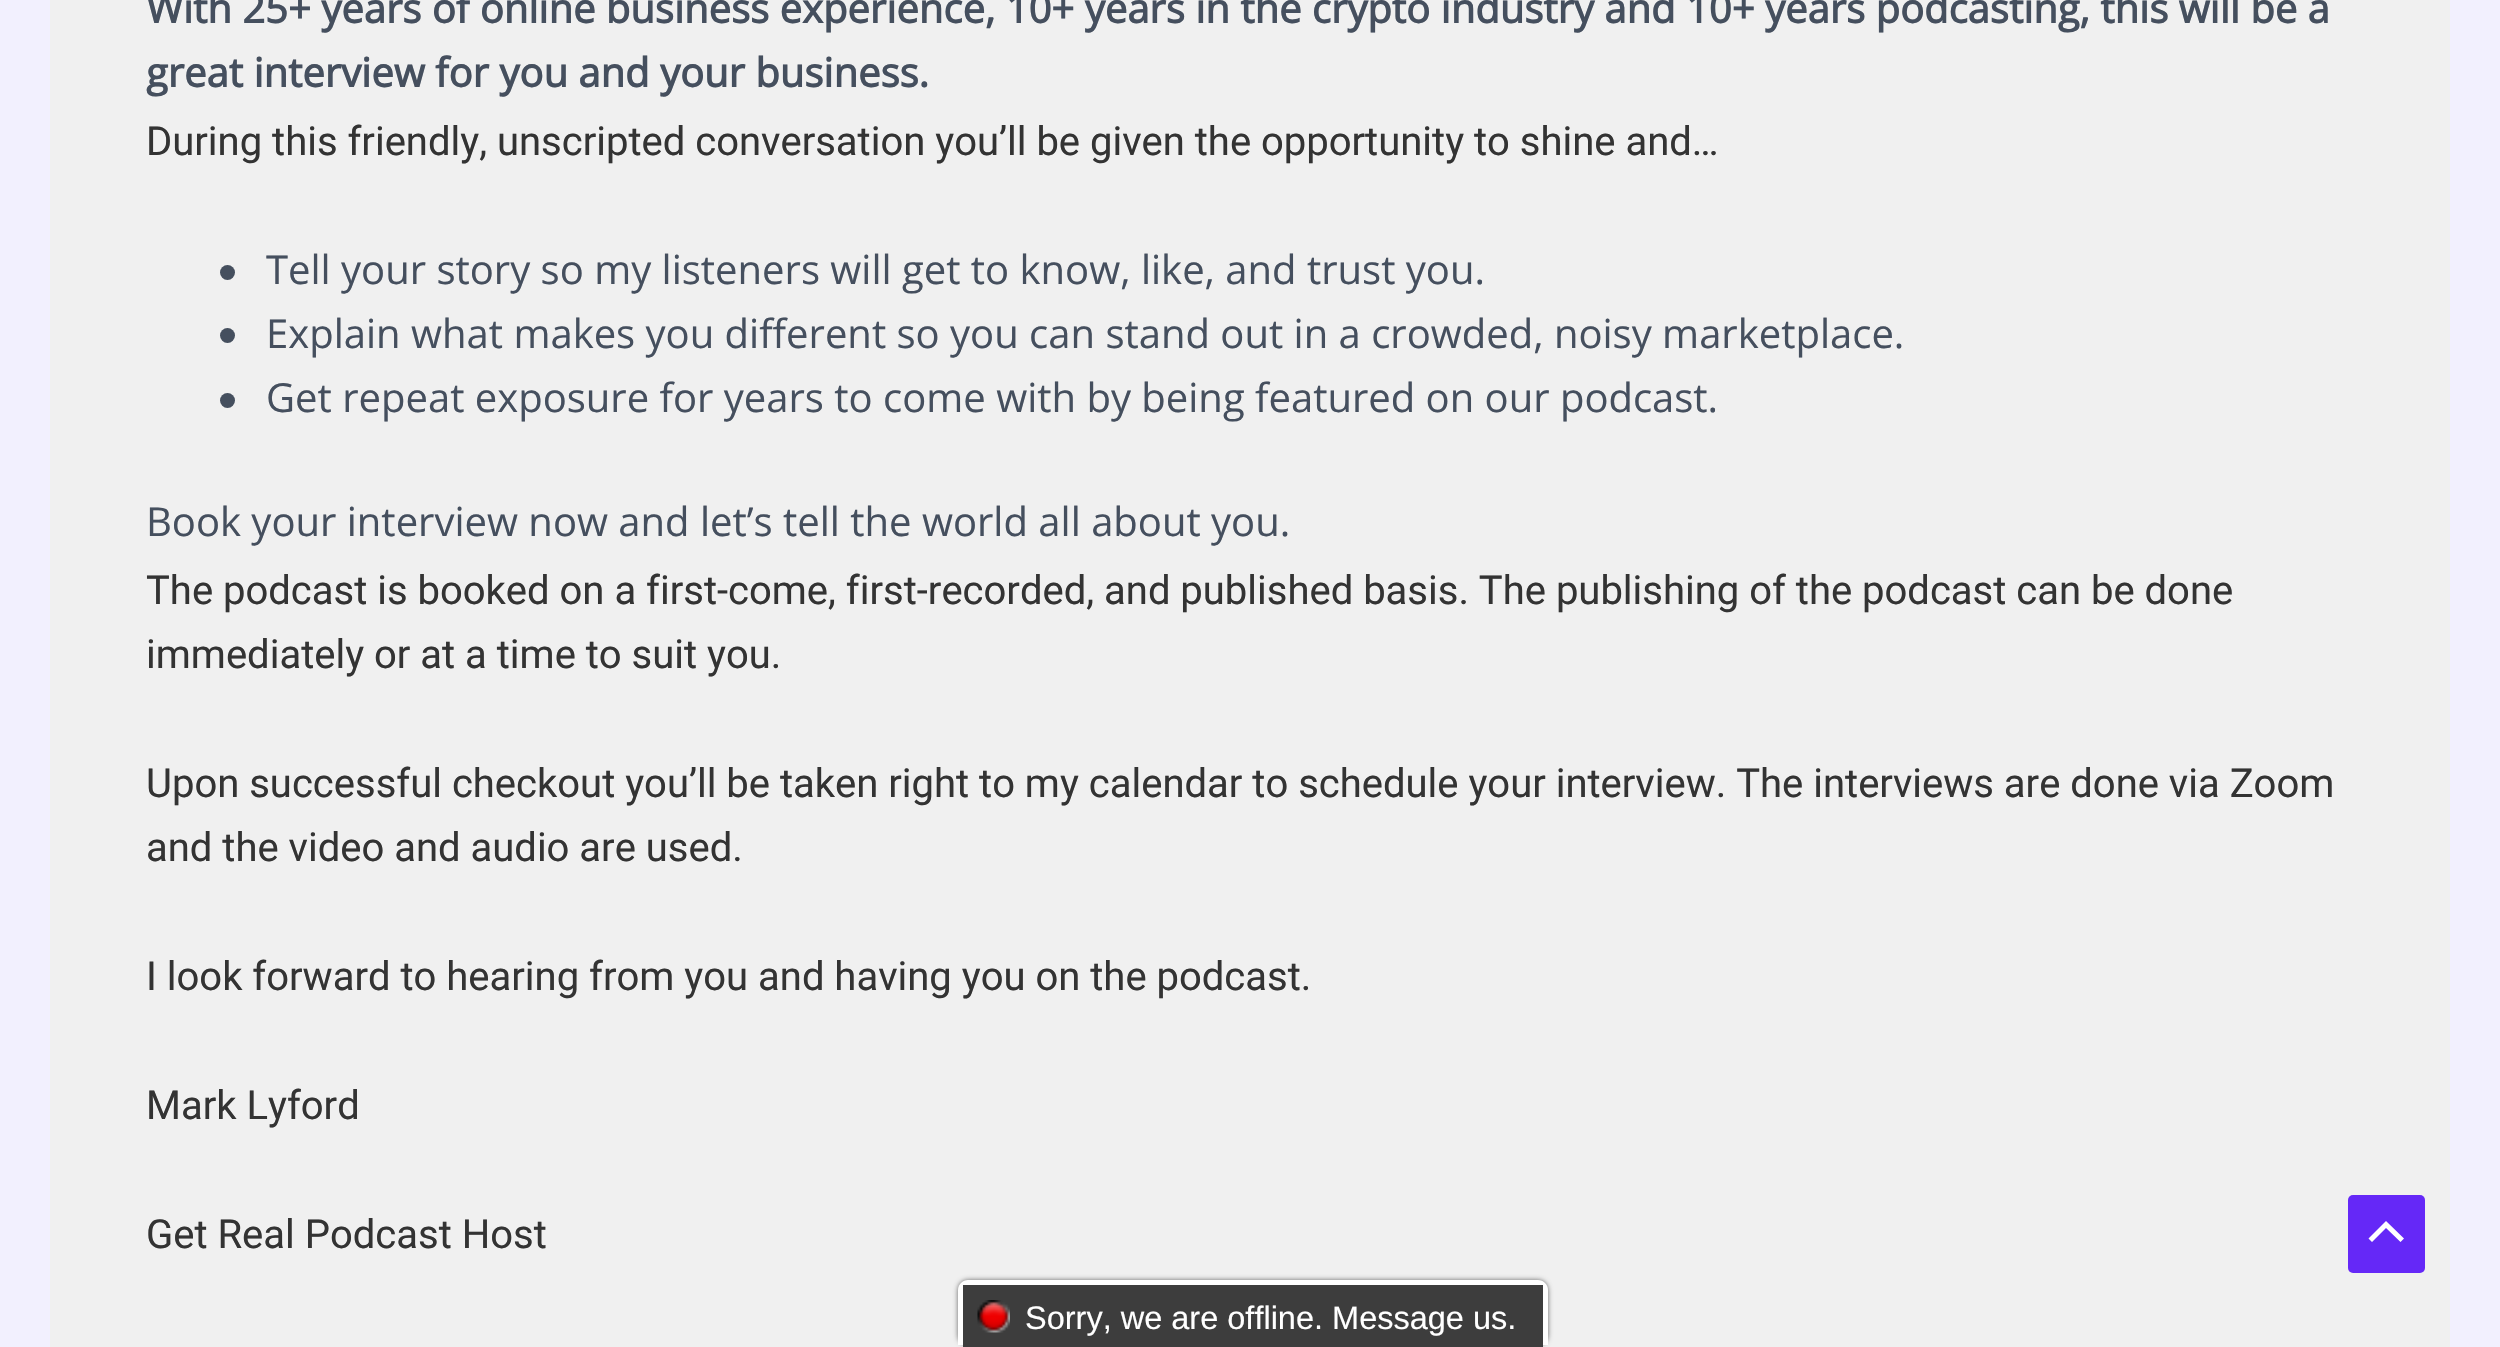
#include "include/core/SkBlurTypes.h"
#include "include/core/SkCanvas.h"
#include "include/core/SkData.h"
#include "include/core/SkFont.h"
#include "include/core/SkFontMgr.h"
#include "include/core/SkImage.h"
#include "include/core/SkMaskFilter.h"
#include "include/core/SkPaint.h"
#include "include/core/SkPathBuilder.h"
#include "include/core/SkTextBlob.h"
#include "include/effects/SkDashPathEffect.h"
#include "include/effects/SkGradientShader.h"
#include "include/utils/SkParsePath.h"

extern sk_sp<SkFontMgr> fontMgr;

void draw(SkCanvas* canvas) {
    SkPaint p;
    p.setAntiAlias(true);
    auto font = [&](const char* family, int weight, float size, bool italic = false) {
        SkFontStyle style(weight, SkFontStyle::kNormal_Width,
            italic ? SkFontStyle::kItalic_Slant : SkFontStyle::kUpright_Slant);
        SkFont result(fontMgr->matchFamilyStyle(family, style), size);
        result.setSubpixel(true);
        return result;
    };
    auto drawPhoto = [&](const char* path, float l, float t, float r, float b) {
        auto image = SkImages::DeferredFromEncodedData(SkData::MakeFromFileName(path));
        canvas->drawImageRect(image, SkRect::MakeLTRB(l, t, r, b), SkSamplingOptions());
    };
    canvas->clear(0xFFF2F0FE);
    p.setColor(0xFFF0F0F0);
    canvas->drawRect(SkRect::MakeLTRB(50, 0, 2450, 1347), p);
    auto font1 = font("Open Sans", 700, 40);
    p.setColor(0xFF454F5E);
    canvas->drawString("With 25+ years of online business experience, 10+ years in the crypto industry and 10+ years podcasting, this will be a", 146, 23, font1, p);
    canvas->drawString("great interview for you and your business.", 146, 87, font1, p);
    auto font2 = font("Roboto", 400, 40);
    p.setColor(0xFF333333);
    canvas->drawString("During this friendly, unscripted conversation you’ll be given the opportunity to shine and…", 146, 155, font2, p);
    p.setColor(0xFF454F5E);
    canvas->drawCircle(227.5f, 272.5f, 7.5f, p);
    auto font3 = font("Open Sans", 400, 40);
    canvas->drawString("Tell your story so my listeners will get to know, like, and trust you.", 266, 284, font3, p);
    canvas->drawCircle(227.5f, 335.5f, 7.5f, p);
    canvas->drawString("Explain what makes you different so you can stand out in a crowded, noisy marketplace.", 266, 348, font3, p);
    canvas->drawCircle(227.5f, 400.5f, 7.5f, p);
    canvas->drawString("Get repeat exposure for years to come with by being featured on our podcast.", 266, 412, font3, p);
    canvas->drawString("Book your interview now and let’s tell the world all about you.", 146, 536, font3, p);
    p.setColor(0xFF333333);
    {
        const struct { const char* s; float x, y; } items[] = {
            {"The podcast is booked on a first-come, first-recorded, and published basis. The publishing of the podcast can be done", 146, 604},
            {"immediately or at a time to suit you.", 146, 668},
            {"Upon successful checkout you’ll be taken right to my calendar to schedule your interview. The interviews are done via Zoom", 146, 797},
            {"and the video and audio are used.", 146, 861},
            {"I look forward to hearing from you and having you on the podcast.", 146, 990},
            {"Mark Lyford", 146, 1119},
            {"Get Real Podcast Host", 146, 1248},
        };
        for (auto [s, x, y] : items) {
            canvas->drawString(s, x, y, font2, p);
        }
    }
    p.setColor(0xFF6528F7);
    canvas->drawRoundRect(SkRect::MakeLTRB(2348, 1195, 2425, 1273), 5, 5, p);
    p.setColor(0xFFFFFFFF);
    canvas->drawPath(SkPathBuilder().moveTo(2404, 1238.5f).lineTo(2386, 1221).lineTo(2368.5f, 1238.5f).lineTo(2372, 1242).lineTo(2386, 1228).lineTo(2400.5f, 1242).close().detach(), p);
    p.setColor(0xFF666666);
    p.setMaskFilter(SkMaskFilter::MakeBlur(kNormal_SkBlurStyle, 2.5f));
    canvas->drawRoundRect(SkRect::MakeLTRB(958, 1280, 1548, 1345), 10, 10, p);
    p.setMaskFilter(nullptr);
    p.setColor(0xFFFFFFFF);
    canvas->drawPath(SkPathBuilder().moveTo(968, 1280).lineTo(1538, 1280).cubicTo(1543.5f, 1280, 1548, 1284.5f, 1548, 1290).lineTo(1548, 1345).lineTo(958, 1345).lineTo(958, 1290).cubicTo(958, 1284.5f, 962.5f, 1280, 968, 1280).close().detach(), p);
    p.setColor(0xFF3D3D3D);
    canvas->drawRect(SkRect::MakeLTRB(963, 1285, 1543, 1347), p);
    drawPhoto("media/1.png", 977, 1300, 1010, 1333);
    auto font4 = font("Liberation Sans", 400, 32.5f);
    p.setColor(0xFFFFFFFF);
    canvas->drawString("Sorry, we are offline. Message us.", 1025, 1329, font4, p);
}
